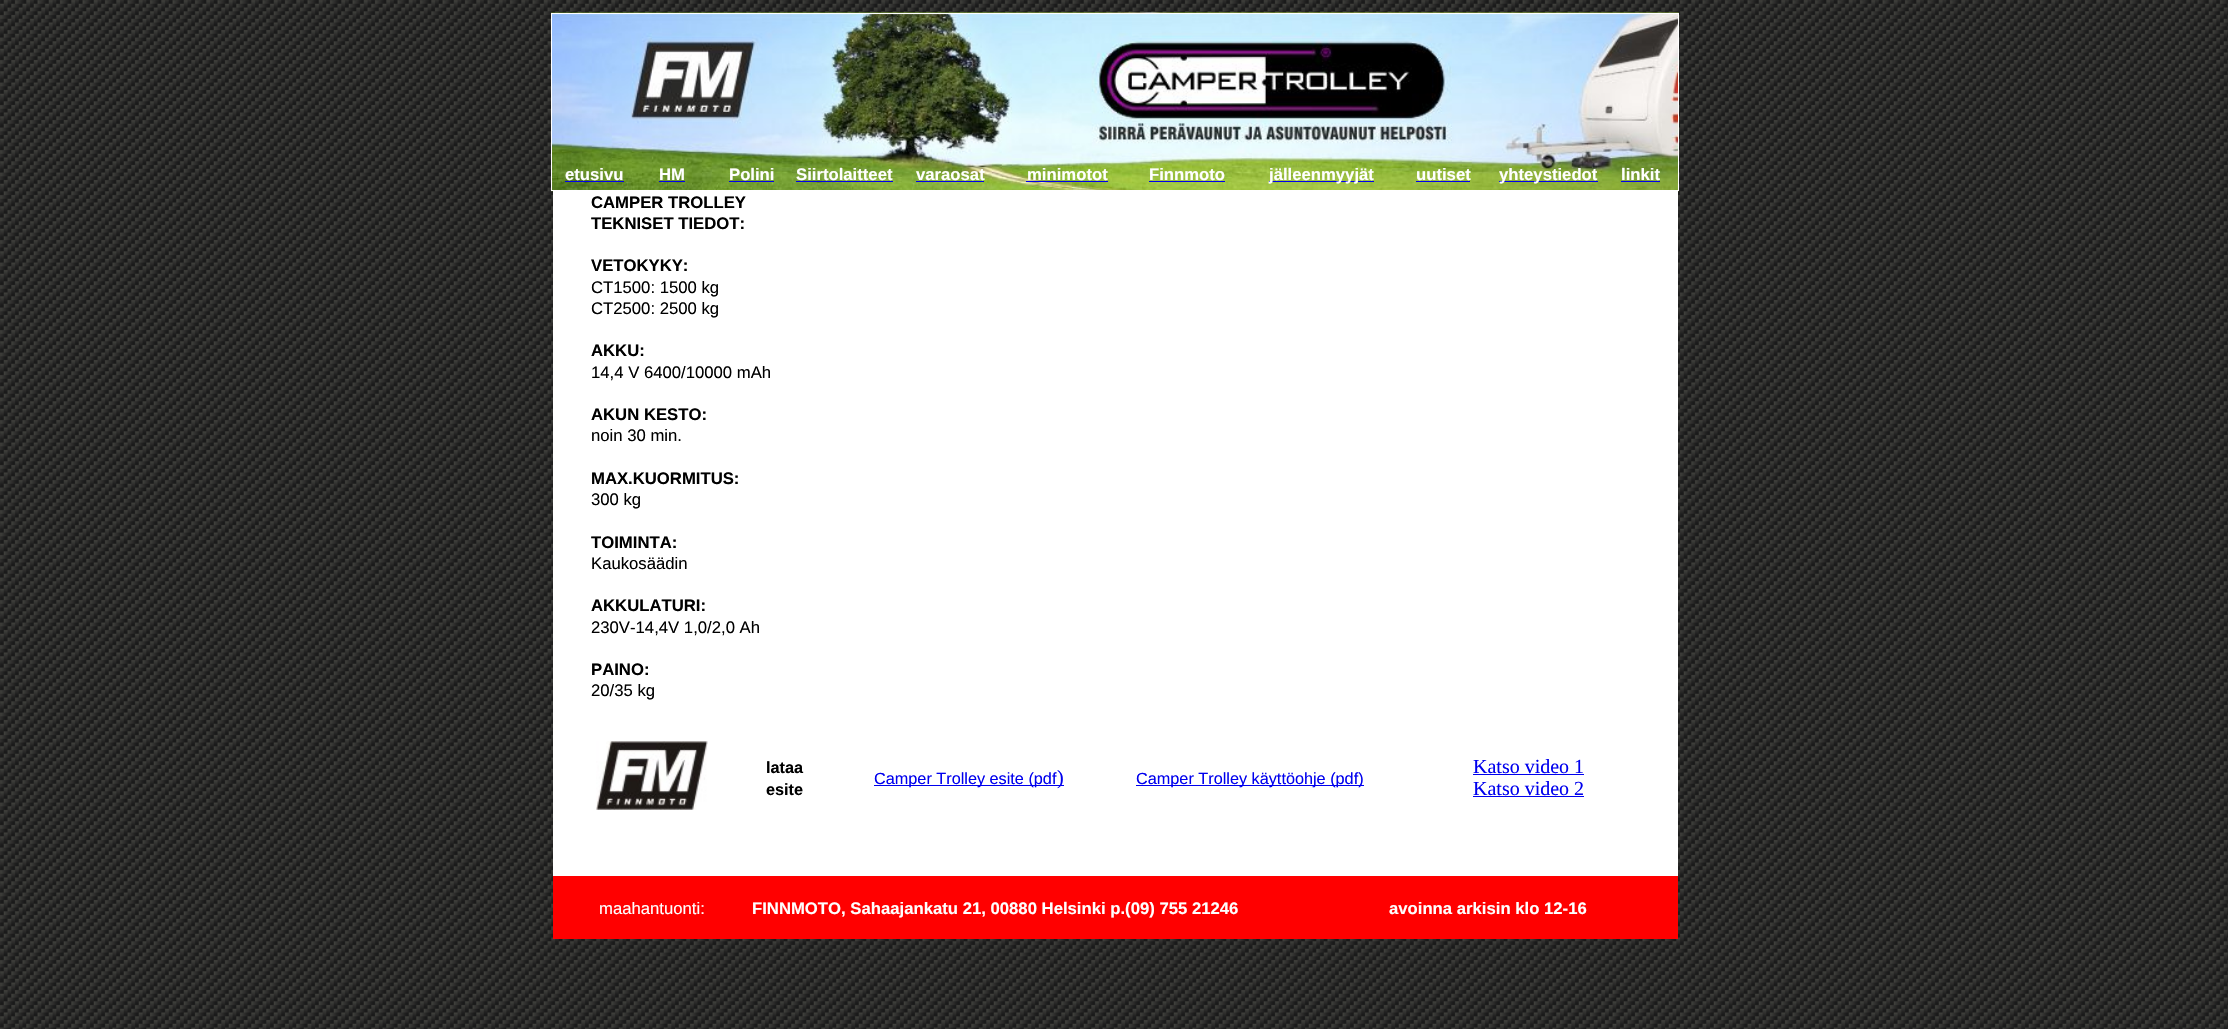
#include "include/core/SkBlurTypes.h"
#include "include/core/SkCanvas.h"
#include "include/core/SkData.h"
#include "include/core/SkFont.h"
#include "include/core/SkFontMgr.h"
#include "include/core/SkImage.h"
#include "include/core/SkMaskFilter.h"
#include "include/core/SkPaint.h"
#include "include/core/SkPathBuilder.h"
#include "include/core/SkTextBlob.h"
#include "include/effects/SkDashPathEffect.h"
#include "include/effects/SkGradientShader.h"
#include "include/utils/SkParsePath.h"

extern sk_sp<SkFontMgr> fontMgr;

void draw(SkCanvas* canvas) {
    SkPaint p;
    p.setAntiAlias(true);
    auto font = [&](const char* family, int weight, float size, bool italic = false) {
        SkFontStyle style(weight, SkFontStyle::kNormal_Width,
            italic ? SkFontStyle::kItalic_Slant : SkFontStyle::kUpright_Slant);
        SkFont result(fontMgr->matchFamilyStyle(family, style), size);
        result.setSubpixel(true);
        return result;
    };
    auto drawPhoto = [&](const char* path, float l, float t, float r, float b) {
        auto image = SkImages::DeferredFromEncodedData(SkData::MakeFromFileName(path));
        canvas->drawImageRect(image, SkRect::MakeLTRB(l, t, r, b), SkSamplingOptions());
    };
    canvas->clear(0xFFFFFFFF);
    drawPhoto("media/1.png", 0, 0, 2228, 1029);
    drawPhoto("media/2.png", 551, 12, 1679, 192);
    {
        const struct { float l, t, r, b; SkColor color; } items[] = {
            {551, 13, 1679, 14, 0xFFFFFFFF},
            {1678, 13, 1679, 191, 0xFFFFFFFF},
            {551, 190, 1679, 191, 0xFFFFFFFF},
            {551, 13, 552, 191, 0xFFFFFFFF},
        };
        for (auto [l, t, r, b, color] : items) {
            p.setColor(color);
            canvas->drawRect(SkRect::MakeLTRB(l, t, r, b), p);
        }
    }
    auto font1 = font("Liberation Sans", 700, 16.7f);
    canvas->drawString("etusivu", 565, 180, font1, p);
    p.setColor(0xFF0000EE);
    canvas->drawRect(SkRect::MakeLTRB(565, 181, 624, 182), p);
    p.setColor(0xFFFFFFFF);
    canvas->drawString("HM", 659, 180, font1, p);
    p.setColor(0xFF0000EE);
    canvas->drawRect(SkRect::MakeLTRB(659, 181, 685, 182), p);
    p.setColor(0xFFFFFFFF);
    canvas->drawString("Polini", 729, 180, font1, p);
    p.setColor(0xFF0000EE);
    canvas->drawRect(SkRect::MakeLTRB(729, 181, 774, 182), p);
    p.setColor(0xFFFFFFFF);
    canvas->drawString("Siirtolaitteet", 796, 180, font1, p);
    p.setColor(0xFF0000EE);
    canvas->drawRect(SkRect::MakeLTRB(796, 181, 893, 182), p);
    p.setColor(0xFFFFFFFF);
    canvas->drawString("varaosat", 916, 180, font1, p);
    p.setColor(0xFF0000EE);
    canvas->drawRect(SkRect::MakeLTRB(916, 181, 984, 182), p);
    p.setColor(0xFFFFFFFF);
    canvas->drawString("minimotot", 1027, 180, font1, p);
    p.setColor(0xFF0000EE);
    canvas->drawRect(SkRect::MakeLTRB(1026, 181, 1108, 182), p);
    p.setColor(0xFFFFFFFF);
    canvas->drawString("Finnmoto", 1149, 180, font1, p);
    p.setColor(0xFF0000EE);
    canvas->drawRect(SkRect::MakeLTRB(1149, 181, 1225, 182), p);
    canvas->drawRect(SkRect::MakeLTRB(1269, 181, 1374, 182), p);
    p.setColor(0xFFFFFFFF);
    canvas->drawString("jälleenmyyjät", 1269, 180, font1, p);
    canvas->drawString("uutiset", 1416, 180, font1, p);
    p.setColor(0xFF0000EE);
    canvas->drawRect(SkRect::MakeLTRB(1416, 181, 1470, 182), p);
    canvas->drawRect(SkRect::MakeLTRB(1499, 181, 1598, 182), p);
    p.setColor(0xFFFFFFFF);
    canvas->drawString("yhteystiedot", 1499, 180, font1, p);
    canvas->drawString("linkit", 1621, 180, font1, p);
    p.setColor(0xFF0000EE);
    canvas->drawRect(SkRect::MakeLTRB(1621, 181, 1660, 182), p);
    p.setColor(0xFFFFFFFF);
    canvas->drawRect(SkRect::MakeLTRB(553, 191, 1678, 876), p);
    p.setColor(0xFF000000);
    {
        const struct { const char* s; float x, y; } items[] = {
            {"CAMPER TROLLEY", 591, 208},
            {"TEKNISET TIEDOT:", 591, 229},
            {"VETOKYKY:", 591, 271},
        };
        for (auto [s, x, y] : items) {
            canvas->drawString(s, x, y, font1, p);
        }
    }
    auto font2 = font("Liberation Sans", 400, 16.7f);
    canvas->drawString("CT1500: 1500 kg", 591, 293, font2, p);
    canvas->drawString("CT2500: 2500 kg", 591, 314, font2, p);
    canvas->drawString("AKKU:", 591, 356, font1, p);
    canvas->drawString("14,4 V 6400/10000 mAh", 591, 378, font2, p);
    canvas->drawString("AKUN KESTO:", 591, 420, font1, p);
    canvas->drawString("noin 30 min.", 591, 441, font2, p);
    canvas->drawString("MAX.KUORMITUS:", 591, 484, font1, p);
    canvas->drawString("300 kg", 591, 505, font2, p);
    canvas->drawString("TOIMINTA:", 591, 548, font1, p);
    canvas->drawString("Kaukosäädin", 591, 569, font2, p);
    canvas->drawString("AKKULATURI:", 591, 611, font1, p);
    canvas->drawString("230V-14,4V 1,0/2,0 Ah", 591, 633, font2, p);
    canvas->drawString("PAINO:", 591, 675, font1, p);
    canvas->drawString("20/35 kg", 591, 696, font2, p);
    drawPhoto("media/3.png", 596, 741, 708, 810);
    auto font3 = font("Liberation Sans", 700, 16.25f);
    canvas->drawString("lataa", 766, 773, font3, p);
    canvas->drawString("esite", 766, 795, font3, p);
    p.setColor(0xFF0000EE);
    canvas->drawRect(SkRect::MakeLTRB(874, 785, 1056, 786), p);
    auto font4 = font("Liberation Sans", 400, 16.25f);
    canvas->drawString("Camper Trolley esite (pdf", 874, 784, font4, p);
    canvas->drawRect(SkRect::MakeLTRB(1056, 785, 1064, 786), p);
    auto font5 = font("Liberation Serif", 400, 20);
    canvas->drawString(")", 1057, 784, font5, p);
    canvas->drawRect(SkRect::MakeLTRB(1136, 785, 1364, 786), p);
    canvas->drawString("Camper Trolley käyttöohje (pdf)", 1136, 784, font4, p);
    canvas->drawString("Katso video 1", 1473, 773, font5, p);
    canvas->drawRect(SkRect::MakeLTRB(1473, 774, 1584, 775), p);
    canvas->drawString("Katso video 2", 1473, 795, font5, p);
    canvas->drawRect(SkRect::MakeLTRB(1473, 796, 1584, 797), p);
    p.setColor(0xFFFF0000);
    canvas->drawRect(SkRect::MakeLTRB(553, 876, 1678, 939), p);
    p.setColor(0xFFFFFFFF);
    canvas->drawString("maahantuonti:", 599, 914, font2, p);
    canvas->drawString("FINNMOTO, Sahaajankatu 21, 00880 Helsinki p.(09) 755 21246", 752, 914, font1, p);
    canvas->drawString("avoinna arkisin klo 12-16", 1389, 914, font1, p);
}
